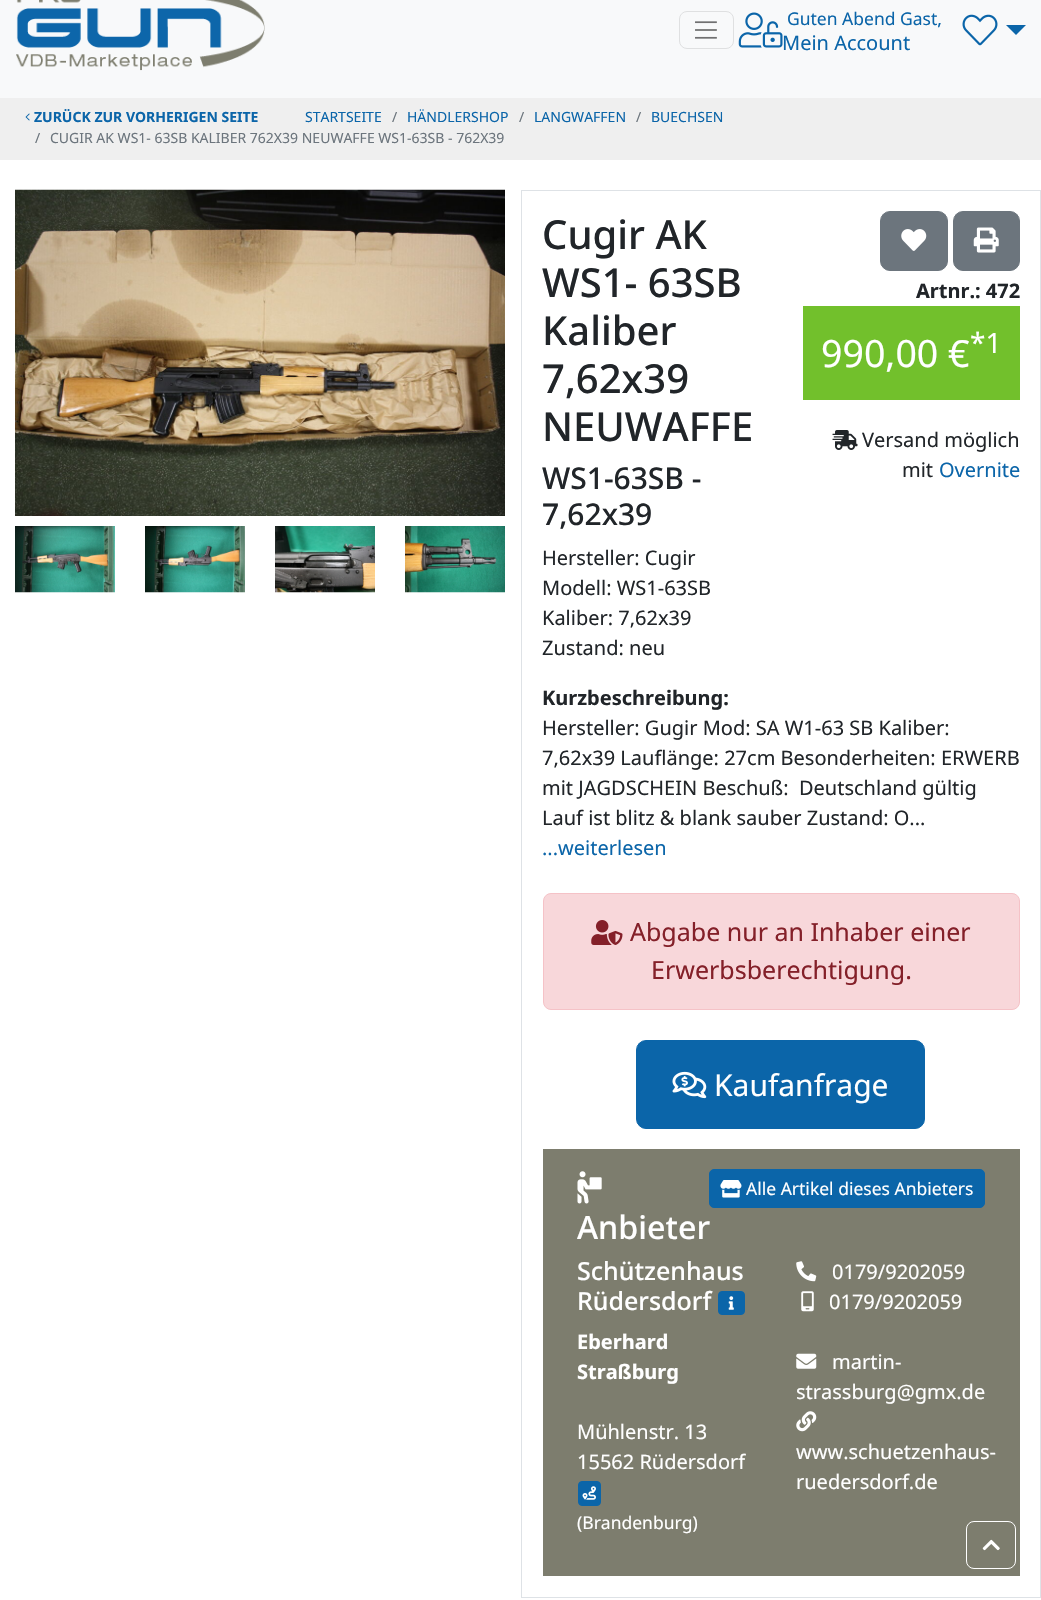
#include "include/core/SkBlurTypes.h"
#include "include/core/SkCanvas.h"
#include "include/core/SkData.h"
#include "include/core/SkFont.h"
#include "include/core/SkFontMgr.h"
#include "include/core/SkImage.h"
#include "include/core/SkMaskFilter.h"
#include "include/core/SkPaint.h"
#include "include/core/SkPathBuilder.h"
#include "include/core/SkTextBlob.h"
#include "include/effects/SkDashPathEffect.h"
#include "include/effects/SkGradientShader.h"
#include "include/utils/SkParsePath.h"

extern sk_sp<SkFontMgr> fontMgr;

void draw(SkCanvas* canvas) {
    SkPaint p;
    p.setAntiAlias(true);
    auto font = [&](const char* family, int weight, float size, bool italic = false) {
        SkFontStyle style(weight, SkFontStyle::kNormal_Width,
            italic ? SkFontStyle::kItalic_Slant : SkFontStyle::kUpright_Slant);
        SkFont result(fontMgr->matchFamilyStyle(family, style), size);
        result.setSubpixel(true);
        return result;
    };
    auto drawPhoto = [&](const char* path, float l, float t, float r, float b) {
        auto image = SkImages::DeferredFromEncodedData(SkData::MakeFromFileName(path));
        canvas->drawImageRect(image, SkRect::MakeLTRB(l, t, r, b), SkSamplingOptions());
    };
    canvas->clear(0xFFFFFFFF);
    p.setColor(0xFFF8F9FA);
    canvas->drawRect(SkRect::MakeLTRB(0, 0, 1041, 98), p);
    drawPhoto("media/1.png", 16, 0, 265, 71);
    p.setStyle(SkPaint::kStroke_Style);
    p.setStrokeWidth(1);
    p.setColor(0xFFDFE0E1);
    canvas->drawRoundRect(SkRect::MakeLTRB(679.5f, 11.5f, 733.5f, 48.5f), 7.5f, 7.5f, p);
    drawPhoto("media/2.png", 695, 21, 717, 39);
    drawPhoto("media/3.png", 738, 12, 783, 48);
    auto font1 = font("Noto Sans", 400, 17.5f);
    p.setStyle(SkPaint::kFill_Style);
    p.setColor(0xFF0B65A9);
    canvas->drawString("Guten Abend Gast,", 787, 25, font1, p);
    auto font2 = font("Noto Sans", 400, 20);
    canvas->drawString("Mein Account", 782, 50, font2, p);
    drawPhoto("media/4.png", 962, 14, 998, 46);
    canvas->drawPath(SkPathBuilder().moveTo(1006, 25).lineTo(1026, 25).lineTo(1016, 35).close().detach(), p);
    p.setColor(0xFFEFEFEF);
    canvas->drawRect(SkRect::MakeLTRB(0, 98, 1041, 160), p);
    drawPhoto("media/5.png", 25, 113, 30, 121);
    auto font3 = font("Noto Sans", 700, 14);
    p.setColor(0xFF0B65A9);
    canvas->drawString("ZURÜCK ZUR VORHERIGEN SEITE", 34, 122, font3, p);
    auto font4 = font("Noto Sans", 400, 14);
    canvas->drawString("STARTSEITE", 305, 122, font4, p);
    p.setColor(0xFF6C757D);
    canvas->drawString("/", 392, 122, font4, p);
    p.setColor(0xFF0B65A9);
    canvas->drawString("HÄNDLERSHOP", 407, 122, font4, p);
    p.setColor(0xFF6C757D);
    canvas->drawString("/", 519, 122, font4, p);
    p.setColor(0xFF0B65A9);
    canvas->drawString("LANGWAFFEN", 534, 122, font4, p);
    p.setColor(0xFF6C757D);
    canvas->drawString("/", 636, 122, font4, p);
    p.setColor(0xFF0B65A9);
    canvas->drawString("BUECHSEN", 651, 122, font4, p);
    p.setColor(0xFF6C757D);
    canvas->drawString("/", 35, 143, font4, p);
    canvas->drawString("CUGIR AK WS1- 63SB KALIBER 762X39 NEUWAFFE WS1-63SB - 762X39", 50, 143, font4, p);
    drawPhoto("media/6.png", 15, 189, 505, 516);
    drawPhoto("media/7.png", 15, 526, 115, 593);
    drawPhoto("media/8.png", 145, 526, 245, 593);
    drawPhoto("media/9.png", 275, 526, 375, 593);
    drawPhoto("media/10.png", 405, 526, 505, 593);
    p.setStyle(SkPaint::kStroke_Style);
    p.setColor(0xFFDEE2E6);
    canvas->drawRect(SkRect::MakeLTRB(521.5f, 190.5f, 1040.5f, 1597.5f), p);
    auto font5 = font("Noto Sans", 500, 40);
    p.setStyle(SkPaint::kFill_Style);
    p.setColor(0xFF212529);
    {
        const struct { const char* s; float x, y; } items[] = {
            {"Cugir AK", 542, 249},
            {"WS1- 63SB", 542, 297},
            {"Kaliber", 542, 345},
            {"7,62x39", 542, 393},
            {"NEUWAFFE", 542, 441},
        };
        for (auto [s, x, y] : items) {
            canvas->drawString(s, x, y, font5, p);
        }
    }
    p.setColor(0xFF6C757D);
    canvas->drawRoundRect(SkRect::MakeLTRB(880.5f, 211.5f, 947.5f, 270.5f), 9.5f, 9.5f, p);
    p.setStyle(SkPaint::kStroke_Style);
    canvas->drawRoundRect(SkRect::MakeLTRB(880.5f, 211.5f, 947.5f, 270.5f), 9.5f, 9.5f, p);
    drawPhoto("media/11.png", 901, 229, 927, 251);
    p.setStyle(SkPaint::kFill_Style);
    canvas->drawRoundRect(SkRect::MakeLTRB(953.5f, 211.5f, 1019.5f, 270.5f), 9.5f, 9.5f, p);
    p.setStyle(SkPaint::kStroke_Style);
    canvas->drawRoundRect(SkRect::MakeLTRB(953.5f, 211.5f, 1019.5f, 270.5f), 9.5f, 9.5f, p);
    drawPhoto("media/12.png", 973, 227, 999, 253);
    auto font6 = font("Noto Sans", 700, 20);
    p.setStyle(SkPaint::kFill_Style);
    p.setColor(0xFF212529);
    canvas->drawString("Artnr.: 472", 916, 298, font6, p);
    p.setColor(0xFF72C02C);
    canvas->drawRect(SkRect::MakeLTRB(803, 306, 1020, 400), p);
    auto font7 = font("Noto Sans", 400, 37.5f);
    p.setColor(0xFFFFFFFF);
    canvas->drawString("990,00 €", 821, 367, font7, p);
    auto font8 = font("Noto Sans", 400, 28);
    canvas->drawString("*1", 970, 353, font8, p);
    drawPhoto("media/13.png", 832, 430, 858, 450);
    p.setColor(0xFF212529);
    canvas->drawString("Versand möglich", 862, 447, font2, p);
    canvas->drawString("mit", 902, 477, font2, p);
    p.setColor(0xFF0B65A9);
    canvas->drawString("Overnite", 939, 477, font2, p);
    auto font9 = font("Noto Sans", 500, 30);
    p.setColor(0xFF212529);
    canvas->drawString("WS1-63SB -", 542, 489, font9, p);
    canvas->drawString("7,62x39", 542, 525, font9, p);
    {
        const struct { const char* s; float x, y; } items[] = {
            {"Hersteller: Cugir", 542, 565},
            {"Modell: WS1-63SB", 542, 595},
            {"Kaliber: 7,62x39", 542, 625},
            {"Zustand: neu", 542, 655},
        };
        for (auto [s, x, y] : items) {
            canvas->drawString(s, x, y, font2, p);
        }
    }
    canvas->drawString("Kurzbeschreibung:", 542, 705, font6, p);
    {
        const struct { const char* s; float x, y; } items[] = {
            {"Hersteller: Gugir Mod: SA W1-63 SB Kaliber:", 542, 735},
            {"7,62x39 Lauflänge: 27cm Besonderheiten: ERWERB", 542, 765},
            {"mit JAGDSCHEIN Beschuß:  Deutschland gültig", 542, 795},
            {"Lauf ist blitz & blank sauber Zustand: O...", 542, 825},
        };
        for (auto [s, x, y] : items) {
            canvas->drawString(s, x, y, font2, p);
        }
    }
    p.setColor(0xFF0B65A9);
    canvas->drawString("...weiterlesen", 542, 855, font2, p);
    p.setColor(0xFFF8D7DA);
    canvas->drawRoundRect(SkRect::MakeLTRB(543.5f, 893.5f, 1019.5f, 1009.5f), 7.5f, 7.5f, p);
    p.setStyle(SkPaint::kStroke_Style);
    p.setColor(0xFFF5C2C7);
    canvas->drawRoundRect(SkRect::MakeLTRB(543.5f, 893.5f, 1019.5f, 1009.5f), 7.5f, 7.5f, p);
    drawPhoto("media/14.png", 591, 920, 623, 945);
    auto font10 = font("Noto Sans", 400, 25);
    p.setStyle(SkPaint::kFill_Style);
    p.setColor(0xFF842029);
    canvas->drawString("Abgabe nur an Inhaber einer", 630, 941, font10, p);
    canvas->drawString("Erwerbsberechtigung.", 651, 979, font10, p);
    p.setColor(0xFF0B65A9);
    canvas->drawRoundRect(SkRect::MakeLTRB(636.5f, 1040.5f, 924.5f, 1128.5f), 9.5f, 9.5f, p);
    p.setStyle(SkPaint::kStroke_Style);
    canvas->drawRoundRect(SkRect::MakeLTRB(636.5f, 1040.5f, 924.5f, 1128.5f), 9.5f, 9.5f, p);
    drawPhoto("media/15.png", 672, 1071, 707, 1099);
    auto font11 = font("Noto Sans", 400, 30);
    p.setStyle(SkPaint::kFill_Style);
    p.setColor(0xFFFFFFFF);
    canvas->drawString("Kaufanfrage", 714, 1096, font11, p);
    p.setColor(0xFF7D7D6E);
    canvas->drawRect(SkRect::MakeLTRB(543, 1149, 1020, 1576), p);
    p.setColor(0xFF0B65A9);
    canvas->drawRoundRect(SkRect::MakeLTRB(709.5f, 1169.5f, 984.5f, 1207.5f), 4.5f, 4.5f, p);
    p.setStyle(SkPaint::kStroke_Style);
    canvas->drawRoundRect(SkRect::MakeLTRB(709.5f, 1169.5f, 984.5f, 1207.5f), 4.5f, 4.5f, p);
    drawPhoto("media/16.png", 720, 1180, 742, 1198);
    p.setStyle(SkPaint::kFill_Style);
    p.setColor(0xFFFFFFFF);
    canvas->drawString("Alle Artikel dieses Anbieters", 746, 1195, font1, p);
    drawPhoto("media/17.png", 577, 1171, 602, 1204);
    auto font12 = font("Noto Sans", 500, 32.25f);
    canvas->drawString("Anbieter", 577, 1239, font12, p);
    auto font13 = font("Noto Sans", 500, 25);
    canvas->drawString("Schützenhaus", 577, 1280, font13, p);
    canvas->drawString("Rüdersdorf", 577, 1310, font13, p);
    p.setColor(0xFF0B65A9);
    canvas->drawRoundRect(SkRect::MakeLTRB(718.5f, 1291.5f, 744.5f, 1314.5f), 3.5f, 3.5f, p);
    p.setStyle(SkPaint::kStroke_Style);
    canvas->drawRoundRect(SkRect::MakeLTRB(718.5f, 1291.5f, 744.5f, 1314.5f), 3.5f, 3.5f, p);
    drawPhoto("media/18.png", 728, 1296, 734, 1310);
    p.setStyle(SkPaint::kFill_Style);
    p.setColor(0xFFFFFFFF);
    canvas->drawString("Eberhard", 577, 1349, font6, p);
    canvas->drawString("Straßburg", 577, 1379, font6, p);
    canvas->drawString("Mühlenstr. 13", 577, 1439, font2, p);
    canvas->drawString("15562 Rüdersdorf", 577, 1469, font2, p);
    p.setColor(0xFF0B65A9);
    canvas->drawRoundRect(SkRect::MakeLTRB(578.5f, 1481.5f, 600.5f, 1505.5f), 3.5f, 3.5f, p);
    p.setStyle(SkPaint::kStroke_Style);
    canvas->drawRoundRect(SkRect::MakeLTRB(578.5f, 1481.5f, 600.5f, 1505.5f), 3.5f, 3.5f, p);
    drawPhoto("media/19.png", 582, 1486, 596, 1500);
    p.setStyle(SkPaint::kFill_Style);
    p.setColor(0xFFFFFFFF);
    canvas->drawString("(Brandenburg)", 577, 1529, font1, p);
    drawPhoto("media/20.png", 796, 1261, 817, 1282);
    canvas->drawString("0179/9202059", 832, 1279, font2, p);
    drawPhoto("media/21.png", 801, 1291, 814, 1312);
    canvas->drawString("0179/9202059", 829, 1309, font2, p);
    drawPhoto("media/22.png", 796, 1353, 817, 1369);
    canvas->drawString("martin-", 832, 1369, font2, p);
    canvas->drawString("strassburg@gmx.de", 796, 1399, font2, p);
    drawPhoto("media/23.png", 796, 1411, 817, 1432);
    canvas->drawString("www.schuetzenhaus-", 796, 1459, font2, p);
    canvas->drawString("ruedersdorf.de", 796, 1489, font2, p);
    p.setStyle(SkPaint::kStroke_Style);
    canvas->drawRoundRect(SkRect::MakeLTRB(966.5f, 1521.5f, 1015.5f, 1568.5f), 7.5f, 7.5f, p);
    drawPhoto("media/24.png", 982, 1539, 1000, 1551);
}
